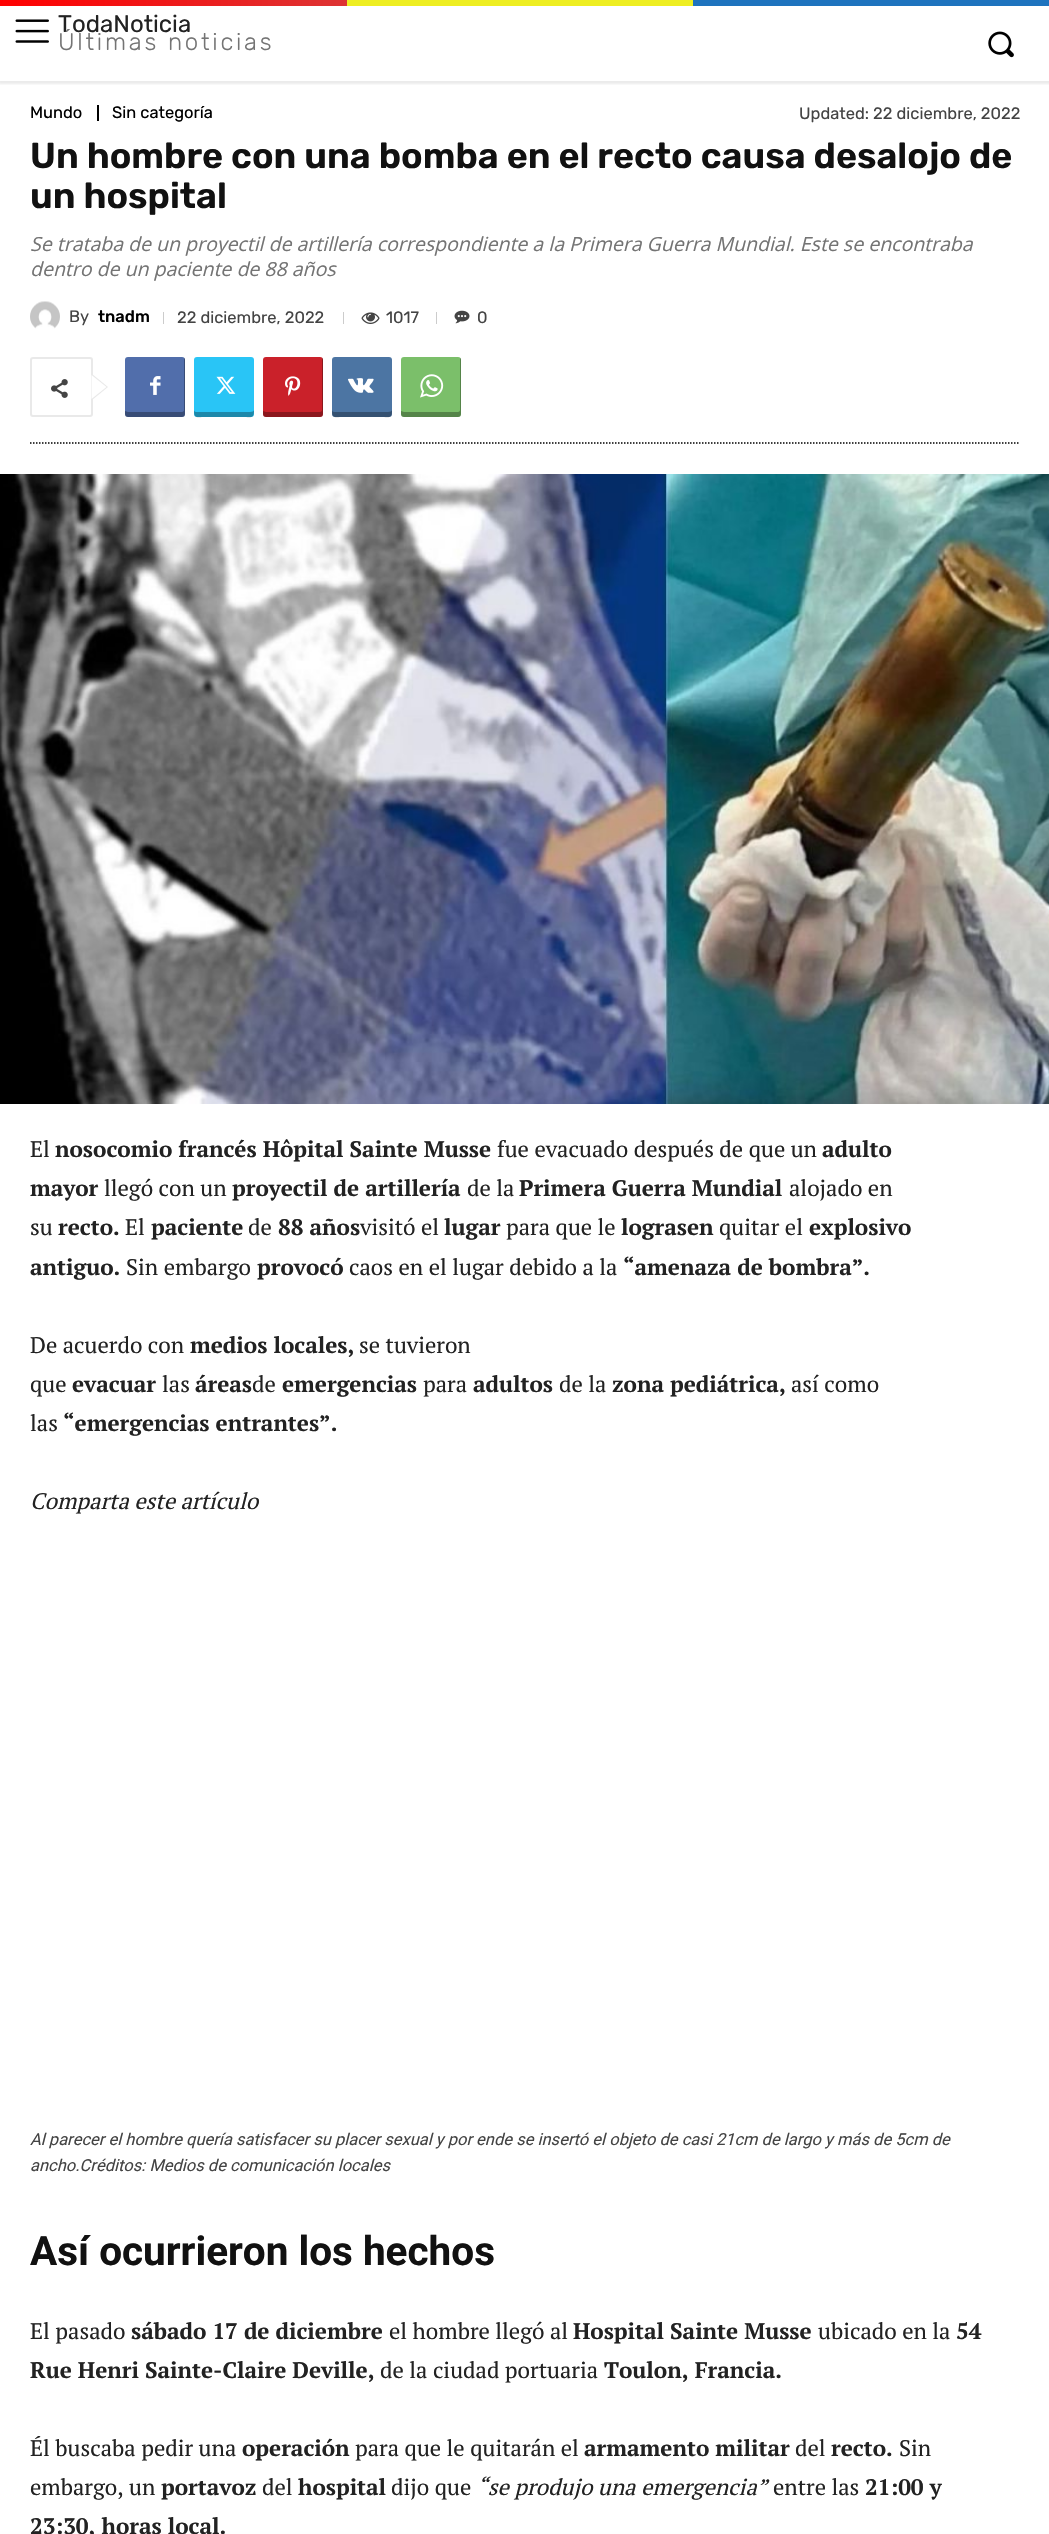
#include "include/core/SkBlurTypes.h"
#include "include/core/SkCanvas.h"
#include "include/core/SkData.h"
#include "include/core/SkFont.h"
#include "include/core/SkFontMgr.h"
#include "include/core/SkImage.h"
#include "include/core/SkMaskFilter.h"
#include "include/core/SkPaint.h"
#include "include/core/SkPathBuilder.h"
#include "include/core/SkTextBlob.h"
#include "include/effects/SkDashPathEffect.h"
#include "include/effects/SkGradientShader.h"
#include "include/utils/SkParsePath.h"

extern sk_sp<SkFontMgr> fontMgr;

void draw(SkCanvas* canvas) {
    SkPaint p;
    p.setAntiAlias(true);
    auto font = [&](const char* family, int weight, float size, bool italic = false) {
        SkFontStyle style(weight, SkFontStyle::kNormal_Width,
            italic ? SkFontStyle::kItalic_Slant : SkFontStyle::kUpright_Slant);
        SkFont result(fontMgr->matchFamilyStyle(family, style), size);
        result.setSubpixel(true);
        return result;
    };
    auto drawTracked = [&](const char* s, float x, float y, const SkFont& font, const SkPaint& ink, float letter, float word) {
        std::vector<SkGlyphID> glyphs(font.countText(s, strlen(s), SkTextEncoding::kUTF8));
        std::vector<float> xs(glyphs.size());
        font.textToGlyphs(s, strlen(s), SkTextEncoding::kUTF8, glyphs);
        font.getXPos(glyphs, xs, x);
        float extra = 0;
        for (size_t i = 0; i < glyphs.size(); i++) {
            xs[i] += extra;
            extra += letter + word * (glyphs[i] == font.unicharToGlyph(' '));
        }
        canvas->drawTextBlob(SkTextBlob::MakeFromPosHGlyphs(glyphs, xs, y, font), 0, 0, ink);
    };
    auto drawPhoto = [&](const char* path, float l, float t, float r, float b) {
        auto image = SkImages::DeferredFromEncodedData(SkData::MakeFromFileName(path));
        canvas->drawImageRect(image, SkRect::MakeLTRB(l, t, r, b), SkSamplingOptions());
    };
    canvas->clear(0xFFFFFFFF);
    {
        const SkColor colors[] = {0xFF1E73BE, 0xFF1E73BE, 0xFFEEEE22, 0xFFEEEE22, 0xFFDD3333, 0xFFFF0000};
        const float stops[] = {0, 0.34f, 0.34f, 0.67f, 0.67f, 1};
        const SkPoint ends[] = {{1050, 3}, {0, 3}};
        p.setShader(SkGradientShader::MakeLinear(ends, colors, stops, 6, SkTileMode::kClamp));
        p.setAlpha(255);
    }
    canvas->drawRect(SkRect::MakeLTRB(0, 0, 1049, 6), p);
    drawPhoto("media/1.png", 15, 19, 49, 43);
    drawPhoto("media/2.png", 988, 31, 1014, 58);
    canvas->save();
    canvas->clipRect(SkRect::MakeLTRB(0, 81, 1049, 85));
    p.setShader(nullptr);
    p.setColor(0x14000000);
    p.setMaskFilter(SkMaskFilter::MakeBlur(kNormal_SkBlurStyle, 1));
    canvas->drawRect(SkRect::MakeLTRB(-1, 0, 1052, 84), p);
    p.setMaskFilter(nullptr);
    canvas->restore();
    auto font1 = font("Rubik", 400, 24);
    p.setColor(0xFF222222);
    canvas->drawString("TodaNoticia", 58, 32, font1, p);
    auto font2 = font("Rubik", 300, 24);
    p.setColor(0xFF747474);
    drawTracked("Últimas noticias", 58, 50, font2, p, 2.75f, 0);
    auto font3 = font("Rubik", 400, 16.5f);
    p.setColor(0xFF000000);
    canvas->drawString("Mundo", 30, 118, font3, p);
    canvas->drawRect(SkRect::MakeLTRB(97, 105, 99, 121), p);
    canvas->drawString("Sin categoría", 112, 118, font3, p);
    p.setColor(0xFF444444);
    canvas->drawString("Updated: 22 diciembre, 2022", 799, 119, font3, p);
    auto font4 = font("Rubik", 600, 36);
    p.setColor(0xFF111111);
    canvas->drawString("Un hombre con una bomba en el recto causa desalojo de", 30, 168, font4, p);
    canvas->drawString("un hospital", 30, 208, font4, p);
    auto font5 = font("Open Sans", 400, 19.5f, true);
    p.setColor(0xFF747474);
    canvas->drawString("Se trataba de un proyectil de artillería correspondiente a la Primera Guerra Mundial. Este se encontraba", 30, 251, font5, p);
    canvas->drawString("dentro de un paciente de 88 años", 30, 276, font5, p);
    drawPhoto("media/3.png", 30, 301, 60, 329);
    p.setColor(0xFF444444);
    canvas->drawString("By", 69, 322, font3, p);
    auto font6 = font("Rubik", 500, 16.5f);
    p.setColor(0xFF000000);
    canvas->drawString("tnadm", 98, 322, font6, p);
    p.setColor(0xFFCCCCCC);
    canvas->drawRect(SkRect::MakeLTRB(163, 312, 164, 324), p);
    p.setColor(0xFF444444);
    canvas->drawString("22 diciembre, 2022", 177, 323, font3, p);
    p.setColor(0xFFCCCCCC);
    canvas->drawRect(SkRect::MakeLTRB(343, 312, 344, 324), p);
    drawPhoto("media/4.png", 361, 312, 380, 324);
    p.setColor(0xFF444444);
    canvas->drawString("1017", 386, 323, font3, p);
    p.setColor(0xFFCCCCCC);
    canvas->drawRect(SkRect::MakeLTRB(436, 312, 437, 324), p);
    drawPhoto("media/5.png", 454, 310, 470, 324);
    p.setColor(0xFF444444);
    canvas->drawString("0", 477, 323, font3, p);
    p.setStyle(SkPaint::kStroke_Style);
    p.setStrokeWidth(2);
    p.setColor(0xFFE9E9E9);
    canvas->drawRoundRect(SkRect::MakeLTRB(31, 358, 92, 416), 2, 2, p);
    p.setStyle(SkPaint::kFill_Style);
    canvas->drawPath(SkPathBuilder().moveTo(91.5f, 400.5f).lineTo(91.5f, 373.5f).lineTo(108, 387).close().detach(), p);
    drawPhoto("media/6.png", 51, 379, 68, 398);
    p.setColor(0xFFFFFFFF);
    canvas->drawPath(SkPathBuilder().moveTo(91.5f, 399).lineTo(91.5f, 375).lineTo(106.5f, 387).close().detach(), p);
    p.setColor(0xFF516EAB);
    canvas->drawRoundRect(SkRect::MakeLTRB(125, 357, 185, 417), 3, 3, p);
    p.setColor(0x4F000000);
    canvas->drawPath(SkPathBuilder().moveTo(125, 411).lineTo(125, 414).cubicTo(125, 416, 126, 417, 128, 417).lineTo(182, 417).cubicTo(184, 417, 185, 416, 185, 414).lineTo(185, 360).cubicTo(185, 359, 185, 358, 184, 358).lineTo(184, 410).cubicTo(184, 411, 183, 412, 182, 412).lineTo(128, 412).close().detach(), p);
    drawPhoto("media/7.png", 150, 376, 161, 395);
    p.setColor(0xFF29C5F6);
    canvas->drawRoundRect(SkRect::MakeLTRB(194, 357, 254, 417), 3, 3, p);
    p.setColor(0x4F000000);
    canvas->drawPath(SkPathBuilder().moveTo(194, 410).cubicTo(194, 419, 196, 417, 206, 417).lineTo(242, 417).cubicTo(252, 417, 254, 419, 254, 410).cubicTo(254, 411, 252, 412, 250, 412).lineTo(196, 412).cubicTo(195, 412, 194, 411, 194, 410).close().detach(), p);
    drawPhoto("media/8.png", 216, 376, 236, 394);
    p.setColor(0xFFCA212A);
    canvas->drawRoundRect(SkRect::MakeLTRB(263, 357, 323, 417), 3, 3, p);
    p.setColor(0x4F000000);
    canvas->drawPath(SkPathBuilder().moveTo(263, 411).lineTo(263, 414).cubicTo(263, 416, 264, 417, 266, 417).lineTo(320, 417).cubicTo(322, 417, 323, 416, 323, 414).lineTo(323, 360).cubicTo(323, 359, 323, 358, 322, 358).lineTo(322, 410).cubicTo(322, 411, 321, 412, 320, 412).lineTo(266, 412).close().detach(), p);
    drawPhoto("media/9.png", 285, 376, 301, 396);
    p.setColor(0xFF4C75A3);
    canvas->drawRoundRect(SkRect::MakeLTRB(332, 357, 392, 417), 3, 3, p);
    p.setColor(0x4F000000);
    canvas->drawPath(SkPathBuilder().moveTo(332, 410).cubicTo(332, 419, 334, 417, 344, 417).lineTo(380, 417).cubicTo(390, 417, 392, 419, 392, 410).cubicTo(392, 411, 390, 412, 388, 412).lineTo(334, 412).cubicTo(333, 412, 332, 411, 332, 410).close().detach(), p);
    drawPhoto("media/10.png", 348, 378, 374, 393);
    p.setColor(0xFF7BBF6A);
    canvas->drawRoundRect(SkRect::MakeLTRB(401, 357, 461, 417), 3, 3, p);
    p.setColor(0x4F000000);
    canvas->drawPath(SkPathBuilder().moveTo(401, 411).lineTo(401, 414).cubicTo(401, 416, 402, 417, 404, 417).lineTo(458, 417).cubicTo(460, 417, 461, 416, 461, 414).lineTo(461, 360).cubicTo(461, 359, 461, 358, 460, 358).lineTo(460, 410).cubicTo(460, 411, 459, 412, 458, 412).lineTo(404, 412).close().detach(), p);
    drawPhoto("media/11.png", 420, 374, 444, 398);
    p.setStyle(SkPaint::kStroke_Style);
    p.setStrokeWidth(1.5f);
    p.setColor(0xFF000000);
    p.setPathEffect(SkDashPathEffect::Make({{1.5f, 1.5f}}, 0));
    canvas->drawPath(SkPathBuilder().moveTo(30, 443).lineTo(1020, 443).detach(), p);
    p.setPathEffect(nullptr);
    drawPhoto("media/12.png", 0, 474, 1049, 1104);
    auto font7 = font("PT Serif", 400, 22.5f);
    p.setStyle(SkPaint::kFill_Style);
    p.setColor(0xFF222222);
    canvas->drawString("El", 30, 1157, font7, p);
    auto font8 = font("PT Serif", 700, 22.5f);
    canvas->drawString("nosocomio francés Hôpital Sainte Musse", 55, 1157, font8, p);
    canvas->drawString("fue evacuado después de que un", 497, 1157, font7, p);
    canvas->drawString("adulto", 822, 1157, font8, p);
    canvas->drawString("mayor", 30, 1196, font8, p);
    canvas->drawString("llegó con un", 104, 1196, font7, p);
    canvas->drawString("proyectil de artillería", 232, 1196, font8, p);
    canvas->drawString("de la", 467, 1196, font7, p);
    canvas->drawString("Primera Guerra Mundial", 519, 1196, font8, p);
    canvas->drawString("alojado en", 789, 1196, font7, p);
    canvas->drawString("su", 30, 1235, font7, p);
    canvas->drawString("recto.", 58, 1235, font8, p);
    canvas->drawString("El", 125, 1235, font7, p);
    canvas->drawString("paciente", 151, 1235, font8, p);
    canvas->drawString("de", 248, 1235, font7, p);
    canvas->drawString("88 años", 278, 1235, font8, p);
    canvas->drawString("visitó el", 360, 1235, font7, p);
    canvas->drawString("lugar", 444, 1235, font8, p);
    canvas->drawString("para que le", 506, 1235, font7, p);
    canvas->drawString("lograsen", 621, 1235, font8, p);
    canvas->drawString("quitar el", 719, 1235, font7, p);
    canvas->drawString("explosivo", 809, 1235, font8, p);
    canvas->drawString("antiguo.", 30, 1275, font8, p);
    canvas->drawString("Sin embargo", 126, 1275, font7, p);
    canvas->drawString("provocó", 257, 1275, font8, p);
    canvas->drawString("caos en el lugar debido a la", 349, 1275, font7, p);
    canvas->drawString("“amenaza de bombra”.", 623, 1275, font8, p);
    canvas->drawString("De acuerdo con", 30, 1353, font7, p);
    canvas->drawString("medios locales,", 190, 1353, font8, p);
    canvas->drawString("se tuvieron", 359, 1353, font7, p);
    canvas->drawString("que", 30, 1392, font7, p);
    canvas->drawString("evacuar", 72, 1392, font8, p);
    canvas->drawString("las", 162, 1392, font7, p);
    canvas->drawString("áreas", 195, 1392, font8, p);
    canvas->drawString("de", 252, 1392, font7, p);
    canvas->drawString("emergencias", 282, 1392, font8, p);
    canvas->drawString("para", 423, 1392, font7, p);
    canvas->drawString("adultos", 473, 1392, font8, p);
    canvas->drawString("de la", 559, 1392, font7, p);
    canvas->drawString("zona pediátrica,", 612, 1392, font8, p);
    canvas->drawString("así como", 791, 1392, font7, p);
    canvas->drawString("las", 30, 1431, font7, p);
    canvas->drawString("“emergencias entrantes”.", 63, 1431, font8, p);
    auto font9 = font("PT Serif", 400, 22.5f, true);
    canvas->drawString("Comparta este artículo", 30, 1509, font9, p);
    auto font10 = font("Roboto", 400, 16.5f, true);
    p.setColor(0xFF444444);
    canvas->drawString("Al parecer el hombre quería satisfacer su placer sexual y por ende se insertó el objeto de casi 21cm de largo y más de 5cm de", 30, 2145, font10, p);
    canvas->drawString("ancho.Créditos: Medios de comunicación locales", 30, 2171, font10, p);
    auto font11 = font("Roboto", 700, 40.5f);
    p.setColor(0xFF111111);
    canvas->drawString("Así ocurrieron los hechos", 30, 2265, font11, p);
    p.setColor(0xFF222222);
    canvas->drawString("El pasado", 30, 2339, font7, p);
    canvas->drawString("sábado 17 de diciembre", 131, 2339, font8, p);
    canvas->drawString("el hombre llegó al", 389, 2339, font7, p);
    canvas->drawString("Hospital Sainte Musse", 573, 2339, font8, p);
    canvas->drawString("ubicado en la", 818, 2339, font7, p);
    canvas->drawString("54", 956, 2339, font8, p);
    canvas->drawString("Rue Henri Sainte-Claire Deville,", 30, 2378, font8, p);
    canvas->drawString("de la ciudad portuaria", 380, 2378, font7, p);
    canvas->drawString("Toulon, Francia.", 604, 2378, font8, p);
    canvas->drawString("Él buscaba pedir una", 30, 2456, font7, p);
    canvas->drawString("operación", 242, 2456, font8, p);
    canvas->drawString("para que le quitarán el", 355, 2456, font7, p);
    canvas->drawString("armamento militar", 584, 2456, font8, p);
    canvas->drawString("del", 795, 2456, font7, p);
    canvas->drawString("recto.", 831, 2456, font8, p);
    canvas->drawString("Sin", 899, 2456, font7, p);
    canvas->drawString("embargo, un", 30, 2495, font7, p);
    canvas->drawString("portavoz", 161, 2495, font8, p);
    canvas->drawString("del", 262, 2495, font7, p);
    canvas->drawString("hospital", 298, 2495, font8, p);
    canvas->drawString("dijo que", 391, 2495, font7, p);
    canvas->drawString("“se produjo una emergencia”", 477, 2495, font9, p);
    canvas->drawString("entre las", 773, 2495, font7, p);
    canvas->drawString("21:00 y", 865, 2495, font8, p);
    canvas->drawString("23:30, horas local.", 30, 2534, font8, p);
}
